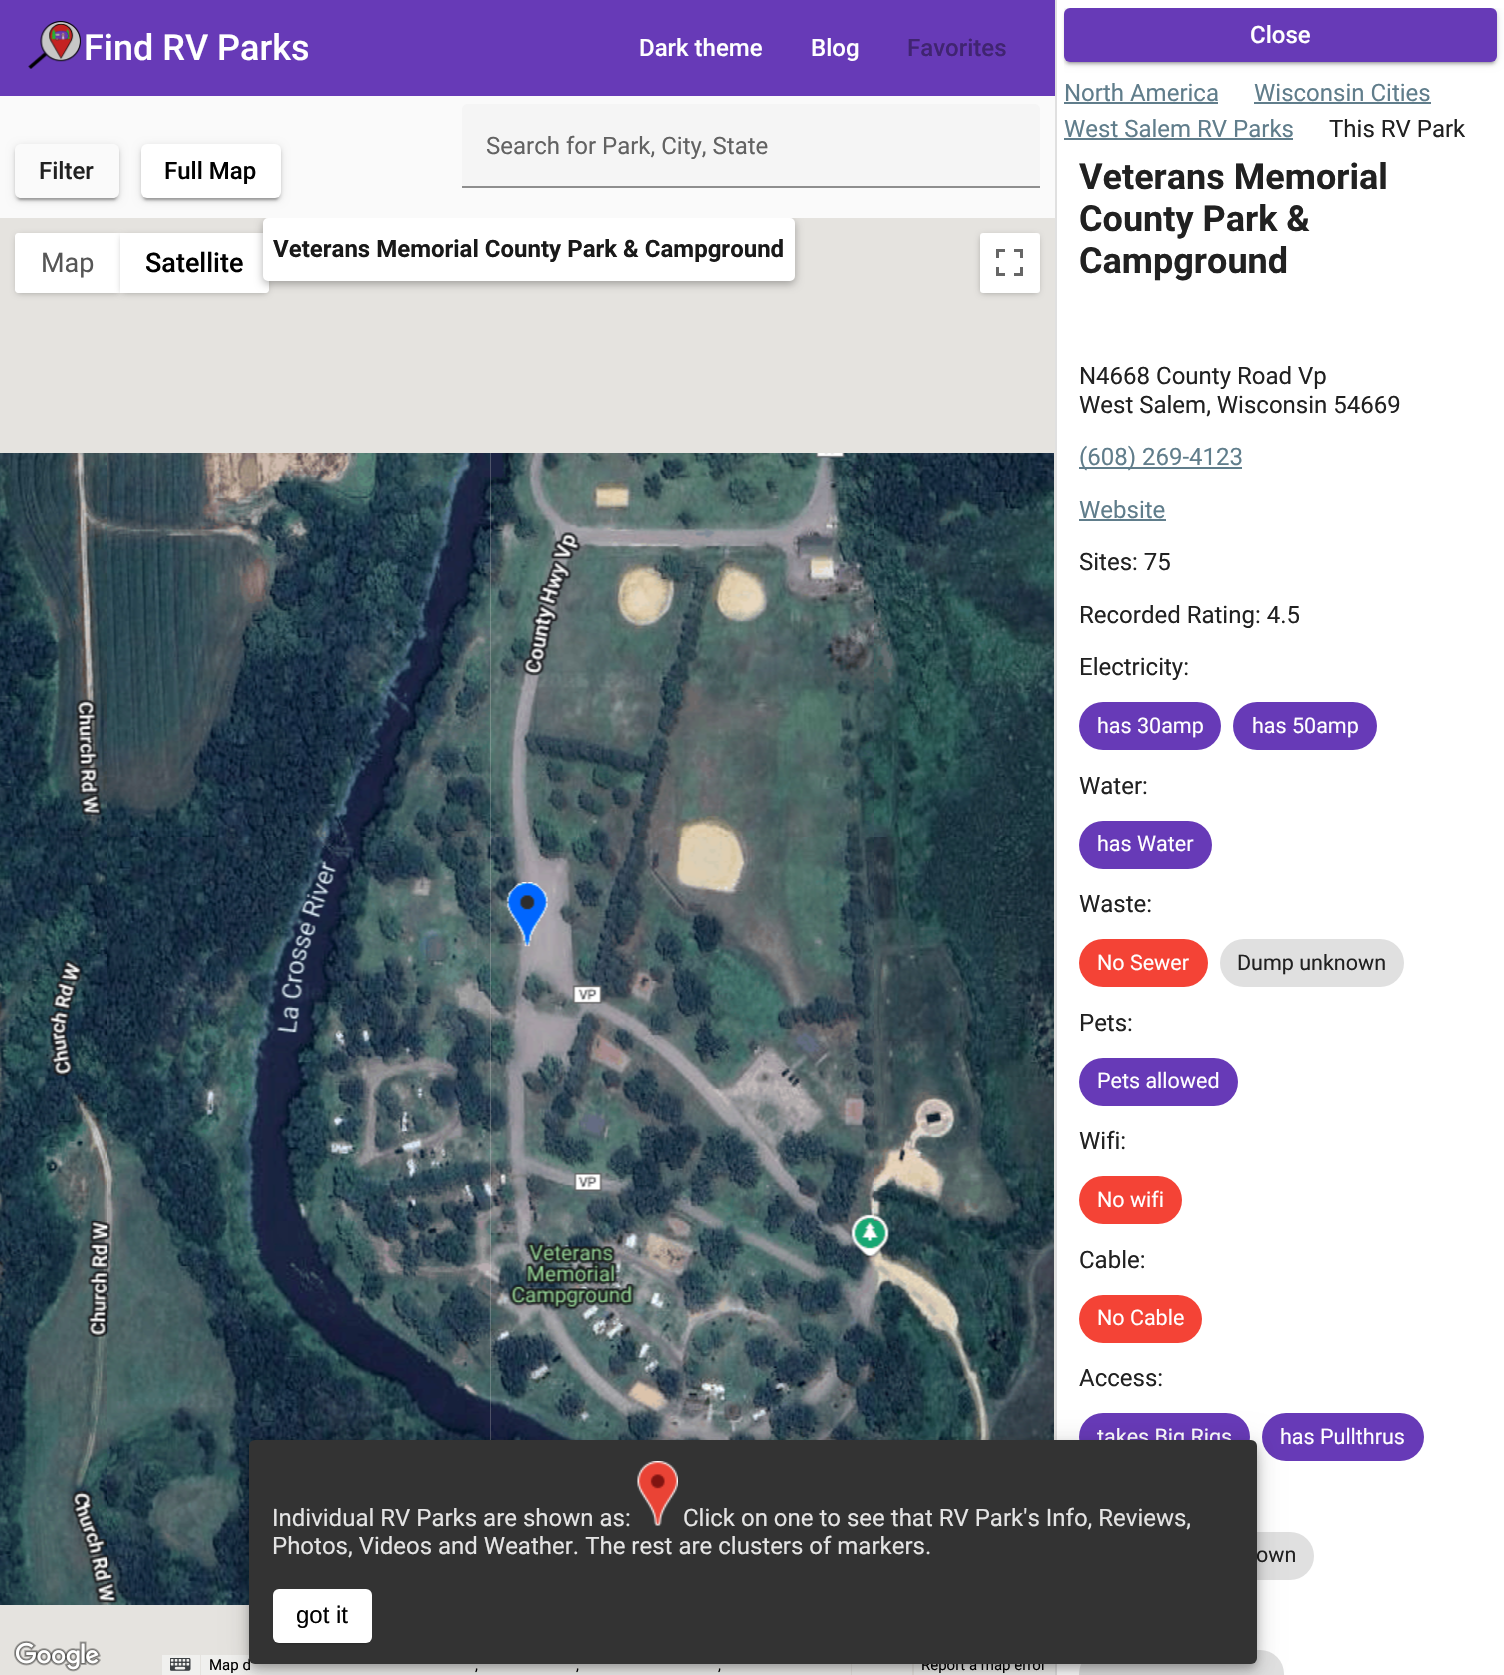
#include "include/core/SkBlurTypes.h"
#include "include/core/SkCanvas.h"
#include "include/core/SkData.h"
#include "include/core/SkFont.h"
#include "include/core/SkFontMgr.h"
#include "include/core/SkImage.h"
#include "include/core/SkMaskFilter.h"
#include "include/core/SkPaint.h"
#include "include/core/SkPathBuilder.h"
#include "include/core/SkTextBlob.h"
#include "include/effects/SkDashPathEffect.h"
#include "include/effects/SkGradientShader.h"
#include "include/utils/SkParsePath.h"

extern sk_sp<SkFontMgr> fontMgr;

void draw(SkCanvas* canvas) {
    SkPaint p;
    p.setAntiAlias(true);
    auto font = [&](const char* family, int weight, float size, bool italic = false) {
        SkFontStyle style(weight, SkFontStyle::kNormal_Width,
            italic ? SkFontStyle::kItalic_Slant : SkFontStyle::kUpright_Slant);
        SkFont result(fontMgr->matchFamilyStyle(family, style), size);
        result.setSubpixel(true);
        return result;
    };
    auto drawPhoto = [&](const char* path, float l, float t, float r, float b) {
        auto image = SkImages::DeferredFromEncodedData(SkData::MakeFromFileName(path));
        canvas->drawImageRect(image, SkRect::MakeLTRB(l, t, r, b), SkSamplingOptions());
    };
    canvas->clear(0xFFFAFAFA);
    p.setColor(0xFF673AB7);
    canvas->drawRect(SkRect::MakeLTRB(0, 0, 1055, 96), p);
    drawPhoto("media/1.png", 28, 21, 81, 69);
    auto font1 = font("Roboto", 500, 36);
    p.setColor(0xFFFFFFFF);
    canvas->drawString("Find RV Parks", 84, 60, font1, p);
    auto font2 = font("Roboto", 500, 24);
    canvas->drawString("Dark theme", 639, 56, font2, p);
    canvas->drawString("Blog", 811, 56, font2, p);
    p.setColor(0xFF402471);
    canvas->drawString("Favorites", 907, 56, font2, p);
    p.setColor(0xFFF5F5F5);
    canvas->drawPath(SkPathBuilder().moveTo(468, 104).lineTo(1034, 104).cubicTo(1037.5f, 104, 1040, 106.5f, 1040, 110).lineTo(1040, 188).lineTo(462, 188).lineTo(462, 110).cubicTo(462, 106.5f, 464.5f, 104, 468, 104).close().detach(), p);
    auto font3 = font("Roboto", 400, 24);
    p.setColor(0xFF626262);
    canvas->drawString("Search for Park, City, State", 486, 154, font3, p);
    p.setColor(0xFF8E8E8E);
    canvas->drawRect(SkRect::MakeLTRB(462, 186, 1040, 188), p);
    canvas->save();
    canvas->clipPath(SkPathBuilder(SkPathFillType::kEvenOdd).moveTo(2, 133).lineTo(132, 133).lineTo(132, 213).lineTo(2, 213).close().moveTo(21, 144).lineTo(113, 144).cubicTo(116.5f, 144, 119, 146.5f, 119, 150).lineTo(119, 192).cubicTo(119, 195.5f, 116.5f, 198, 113, 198).lineTo(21, 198).cubicTo(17.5f, 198, 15, 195.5f, 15, 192).lineTo(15, 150).cubicTo(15, 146.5f, 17.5f, 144, 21, 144).close().detach(), true);
    p.setColor(0x1F000000);
    p.setMaskFilter(SkMaskFilter::MakeBlur(kNormal_SkBlurStyle, 4));
    canvas->drawRoundRect(SkRect::MakeLTRB(15, 146, 119, 200), 6, 6, p);
    p.setMaskFilter(nullptr);
    canvas->restore();
    canvas->save();
    canvas->clipPath(SkPathBuilder(SkPathFillType::kEvenOdd).moveTo(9, 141).lineTo(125, 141).lineTo(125, 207).lineTo(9, 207).close().moveTo(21, 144).lineTo(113, 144).cubicTo(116.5f, 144, 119, 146.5f, 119, 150).lineTo(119, 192).cubicTo(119, 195.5f, 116.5f, 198, 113, 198).lineTo(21, 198).cubicTo(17.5f, 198, 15, 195.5f, 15, 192).lineTo(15, 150).cubicTo(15, 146.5f, 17.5f, 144, 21, 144).close().detach(), true);
    p.setColor(0x24000000);
    p.setMaskFilter(SkMaskFilter::MakeBlur(kNormal_SkBlurStyle, 1.5f));
    canvas->drawRoundRect(SkRect::MakeLTRB(15, 147, 119, 201), 6, 6, p);
    p.setMaskFilter(nullptr);
    canvas->restore();
    canvas->save();
    canvas->clipPath(SkPathBuilder(SkPathFillType::kEvenOdd).moveTo(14, 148).lineTo(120, 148).lineTo(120, 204).lineTo(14, 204).close().moveTo(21, 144).lineTo(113, 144).cubicTo(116.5f, 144, 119, 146.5f, 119, 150).lineTo(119, 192).cubicTo(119, 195.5f, 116.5f, 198, 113, 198).lineTo(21, 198).cubicTo(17.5f, 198, 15, 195.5f, 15, 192).lineTo(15, 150).cubicTo(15, 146.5f, 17.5f, 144, 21, 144).close().detach(), true);
    p.setColor(0x33000000);
    p.setMaskFilter(SkMaskFilter::MakeBlur(kNormal_SkBlurStyle, 1));
    canvas->drawRoundRect(SkRect::MakeLTRB(18, 152, 116, 200), 3, 3, p);
    p.setMaskFilter(nullptr);
    canvas->restore();
    p.setColor(0xFF212121);
    canvas->drawString("Filter", 39, 179, font2, p);
    p.setColor(0x1F000000);
    p.setMaskFilter(SkMaskFilter::MakeBlur(kNormal_SkBlurStyle, 4));
    canvas->drawRoundRect(SkRect::MakeLTRB(141, 146, 281, 200), 6, 6, p);
    p.setMaskFilter(nullptr);
    p.setColor(0x24000000);
    p.setMaskFilter(SkMaskFilter::MakeBlur(kNormal_SkBlurStyle, 1.5f));
    canvas->drawRoundRect(SkRect::MakeLTRB(141, 147, 281, 201), 6, 6, p);
    p.setMaskFilter(nullptr);
    p.setColor(0x33000000);
    p.setMaskFilter(SkMaskFilter::MakeBlur(kNormal_SkBlurStyle, 1));
    canvas->drawRoundRect(SkRect::MakeLTRB(144, 152, 278, 200), 3, 3, p);
    p.setMaskFilter(nullptr);
    p.setColor(0xFFFFFFFF);
    canvas->drawRoundRect(SkRect::MakeLTRB(141, 144, 281, 198), 6, 6, p);
    p.setColor(0xFF000000);
    canvas->drawString("Full Map", 164, 179, font2, p);
    p.setColor(0xFFE5E3DF);
    canvas->drawRect(SkRect::MakeLTRB(0, 218, 1055, 1675), p);
    p.setColor(0x4D000000);
    p.setMaskFilter(SkMaskFilter::MakeBlur(kNormal_SkBlurStyle, 3));
    canvas->drawRoundRect(SkRect::MakeLTRB(17, 236, 119, 293), 1.5f, 1.5f, p);
    p.setMaskFilter(nullptr);
    p.setColor(0xFFFFFFFF);
    canvas->drawPath(SkPathBuilder().moveTo(18, 233).lineTo(120, 233).lineTo(120, 293).lineTo(18, 293).cubicTo(16.5f, 293, 15, 291.5f, 15, 290).lineTo(15, 236).cubicTo(15, 234.5f, 16.5f, 233, 18, 233).close().detach(), p);
    auto font4 = font("Roboto", 400, 27);
    p.setColor(0xFF565656);
    canvas->drawString("Map", 41, 272, font4, p);
    p.setColor(0x4D000000);
    p.setMaskFilter(SkMaskFilter::MakeBlur(kNormal_SkBlurStyle, 3));
    canvas->drawRoundRect(SkRect::MakeLTRB(122, 236, 267, 293), 1.5f, 1.5f, p);
    p.setMaskFilter(nullptr);
    p.setColor(0xFFFFFFFF);
    canvas->drawPath(SkPathBuilder().moveTo(120, 233).lineTo(266, 233).cubicTo(267.5f, 233, 269, 234.5f, 269, 236).lineTo(269, 290).cubicTo(269, 291.5f, 267.5f, 293, 266, 293).lineTo(120, 293).close().detach(), p);
    auto font5 = font("Roboto", 500, 27);
    p.setColor(0xFF000000);
    canvas->drawString("Satellite", 145, 272, font5, p);
    canvas->save();
    canvas->clipRect(SkRect::MakeLTRB(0, 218, 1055, 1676));
    p.setColor(0x4D000000);
    p.setMaskFilter(SkMaskFilter::MakeBlur(kNormal_SkBlurStyle, 4.5f));
    canvas->drawRoundRect(SkRect::MakeLTRB(263, 221, 795, 284), 5, 5, p);
    p.setMaskFilter(nullptr);
    canvas->restore();
    p.setColor(0xFFFFFFFF);
    canvas->drawRoundRect(SkRect::MakeLTRB(264.5f, 219.5f, 793.5f, 279.5f), 3.5f, 3.5f, p);
    p.setStyle(SkPaint::kStroke_Style);
    p.setStrokeWidth(3);
    canvas->drawRoundRect(SkRect::MakeLTRB(264.5f, 219.5f, 793.5f, 279.5f), 3.5f, 3.5f, p);
    auto font6 = font("Roboto", 700, 24);
    p.setStyle(SkPaint::kFill_Style);
    p.setColor(0xFF191919);
    canvas->drawString("Veterans Memorial County Park & Campground", 273, 257, font6, p);
    p.setColor(0x4D000000);
    p.setMaskFilter(SkMaskFilter::MakeBlur(kNormal_SkBlurStyle, 3));
    canvas->drawRoundRect(SkRect::MakeLTRB(981, 236, 1038, 293), 1.5f, 1.5f, p);
    p.setMaskFilter(nullptr);
    p.setColor(0xFFFFFFFF);
    canvas->drawRoundRect(SkRect::MakeLTRB(980, 233, 1040, 293), 3, 3, p);
    drawPhoto("media/2.png", 996, 249, 1023, 276);
    drawPhoto("media/3.png", 0, 453, 107, 837);
    drawPhoto("media/4.png", 107, 453, 491, 837);
    drawPhoto("media/5.png", 490, 453, 874, 837);
    drawPhoto("media/6.png", 874, 453, 1054, 837);
    drawPhoto("media/7.png", 0, 837, 107, 1221);
    drawPhoto("media/9.png", 490, 837, 874, 1221);
    drawPhoto("media/8.png", 107, 837, 491, 1221);
    drawPhoto("media/10.png", 874, 837, 1054, 1221);
    drawPhoto("media/11.png", 0, 1221, 107, 1605);
    drawPhoto("media/14.png", 874, 1221, 1054, 1440);
    drawPhoto("media/13.png", 490, 1221, 875, 1440);
    drawPhoto("media/12.png", 107, 1221, 491, 1605);
    drawPhoto("media/15.png", 506, 882, 548, 947);
    drawPhoto("media/16.png", 14, 1640, 101, 1672);
    p.setColor(0xFFF0F0EE);
    canvas->drawRect(SkRect::MakeLTRB(162, 1655, 200, 1675), p);
    drawPhoto("media/17.png", 170, 1658, 191, 1671);
    canvas->drawRect(SkRect::MakeLTRB(201, 1655, 851, 1675), p);
    auto font7 = font("Roboto", 400, 15);
    p.setColor(0xFF000000);
    {
        const struct { const char* s; float x, y; } items[] = {
            {"Map d", 209, 1670},
            {",", 475, 1670},
            {",", 576, 1670},
            {",", 718, 1670},
        };
        for (auto [s, x, y] : items) {
            canvas->drawString(s, x, y, font7, p);
        }
    }
    p.setColor(0xFFF0F0EE);
    canvas->drawRect(SkRect::MakeLTRB(852, 1664, 912, 1675), p);
    canvas->drawRect(SkRect::MakeLTRB(914, 1664, 1055, 1675), p);
    p.setColor(0xFF000000);
    canvas->drawString("Report a map error", 921, 1670, font7, p);
    p.setColor(0xFFFFFFFF);
    canvas->drawRect(SkRect::MakeLTRB(1057, 0, 1504, 1675), p);
    p.setColor(0xFFE0E0E0);
    canvas->drawRect(SkRect::MakeLTRB(1055, 0, 1057, 1675), p);
    canvas->save();
    canvas->clipRect(SkRect::MakeLTRB(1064, 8, 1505, 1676));
    p.setColor(0x1F000000);
    p.setMaskFilter(SkMaskFilter::MakeBlur(kNormal_SkBlurStyle, 4));
    canvas->drawRoundRect(SkRect::MakeLTRB(1064, 9, 1497, 63), 6, 6, p);
    p.setMaskFilter(nullptr);
    canvas->restore();
    canvas->save();
    canvas->clipPath(SkPathBuilder(SkPathFillType::kEvenOdd).moveTo(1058, 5).lineTo(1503, 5).lineTo(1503, 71).lineTo(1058, 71).close().moveTo(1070, 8).lineTo(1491, 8).cubicTo(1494.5f, 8, 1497, 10.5f, 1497, 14).lineTo(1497, 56).cubicTo(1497, 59.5f, 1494.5f, 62, 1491, 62).lineTo(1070, 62).cubicTo(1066.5f, 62, 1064, 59.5f, 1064, 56).lineTo(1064, 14).cubicTo(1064, 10.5f, 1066.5f, 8, 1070, 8).close().detach(), true);
    p.setColor(0x24000000);
    p.setMaskFilter(SkMaskFilter::MakeBlur(kNormal_SkBlurStyle, 1.5f));
    canvas->drawRoundRect(SkRect::MakeLTRB(1064, 11, 1497, 65), 6, 6, p);
    p.setMaskFilter(nullptr);
    canvas->restore();
    p.setColor(0x33000000);
    p.setMaskFilter(SkMaskFilter::MakeBlur(kNormal_SkBlurStyle, 1));
    canvas->drawRoundRect(SkRect::MakeLTRB(1067, 15, 1494, 63), 3, 3, p);
    p.setMaskFilter(nullptr);
    p.setColor(0xFF673AB7);
    canvas->drawRoundRect(SkRect::MakeLTRB(1064, 8, 1497, 62), 6, 6, p);
    p.setColor(0xFFFFFFFF);
    canvas->drawString("Close", 1250, 43, font2, p);
    p.setColor(0xFF607D8B);
    canvas->drawString("North America", 1064, 101, font3, p);
    canvas->drawRect(SkRect::MakeLTRB(1064, 102, 1218, 104), p);
    canvas->drawString("Wisconsin Cities", 1254, 101, font3, p);
    canvas->drawRect(SkRect::MakeLTRB(1254, 102, 1431, 104), p);
    canvas->drawString("West Salem RV Parks", 1064, 137, font3, p);
    canvas->drawRect(SkRect::MakeLTRB(1064, 138, 1293, 140), p);
    p.setColor(0xFF212121);
    canvas->drawString("This RV Park", 1329, 137, font3, p);
    auto font8 = font("Roboto", 700, 36);
    {
        const struct { const char* s; float x, y; } items[] = {
            {"Veterans Memorial", 1079, 189},
            {"County Park &", 1079, 231},
            {"Campground", 1079, 273},
        };
        for (auto [s, x, y] : items) {
            canvas->drawString(s, x, y, font8, p);
        }
    }
    canvas->drawString("N4668 County Road Vp", 1079, 384, font3, p);
    canvas->drawString("West Salem, Wisconsin 54669", 1079, 413, font3, p);
    p.setColor(0xFF607D8B);
    canvas->drawRect(SkRect::MakeLTRB(1079, 467, 1242, 469), p);
    canvas->drawString("(608) 269-4123", 1079, 465, font3, p);
    canvas->drawString("Website", 1079, 518, font3, p);
    canvas->drawRect(SkRect::MakeLTRB(1079, 519, 1166, 521), p);
    p.setColor(0xFF212121);
    {
        const struct { const char* s; float x, y; } items[] = {
            {"Sites: 75", 1079, 570},
            {"Recorded Rating: 4.5", 1079, 623},
            {"Electricity:", 1079, 675},
        };
        for (auto [s, x, y] : items) {
            canvas->drawString(s, x, y, font3, p);
        }
    }
    p.setColor(0xFF673AB7);
    canvas->drawRoundRect(SkRect::MakeLTRB(1079, 702, 1221, 750), 24, 24, p);
    auto font9 = font("Roboto", 400, 21.5f);
    p.setColor(0xFFFFFFFF);
    canvas->drawString("has 30amp", 1097, 733, font9, p);
    p.setColor(0xFF673AB7);
    canvas->drawRoundRect(SkRect::MakeLTRB(1233, 702, 1377, 750), 24, 24, p);
    p.setColor(0xFFFFFFFF);
    canvas->drawString("has 50amp", 1252, 733, font9, p);
    p.setColor(0xFF212121);
    canvas->drawString("Water:", 1079, 794, font3, p);
    p.setColor(0xFF673AB7);
    canvas->drawRoundRect(SkRect::MakeLTRB(1079, 821, 1212, 869), 24, 24, p);
    p.setColor(0xFFFFFFFF);
    canvas->drawString("has Water", 1097, 851, font9, p);
    p.setColor(0xFF212121);
    canvas->drawString("Waste:", 1079, 912, font3, p);
    p.setColor(0xFFF44336);
    canvas->drawRoundRect(SkRect::MakeLTRB(1079, 939, 1208, 987), 24, 24, p);
    p.setColor(0xFFFFFFFF);
    canvas->drawString("No Sewer", 1097, 970, font9, p);
    p.setColor(0xFFE0E0E0);
    canvas->drawRoundRect(SkRect::MakeLTRB(1220, 939, 1404, 987), 24, 24, p);
    p.setColor(0xFF212121);
    canvas->drawString("Dump unknown", 1237, 970, font9, p);
    canvas->drawString("Pets:", 1079, 1031, font3, p);
    p.setColor(0xFF673AB7);
    canvas->drawRoundRect(SkRect::MakeLTRB(1079, 1058, 1238, 1106), 24, 24, p);
    p.setColor(0xFFFFFFFF);
    canvas->drawString("Pets allowed", 1097, 1088, font9, p);
    p.setColor(0xFF212121);
    canvas->drawString("Wifi:", 1079, 1149, font3, p);
    p.setColor(0xFFF44336);
    canvas->drawRoundRect(SkRect::MakeLTRB(1079, 1176, 1182, 1224), 24, 24, p);
    p.setColor(0xFFFFFFFF);
    canvas->drawString("No wifi", 1097, 1207, font9, p);
    p.setColor(0xFF212121);
    canvas->drawString("Cable:", 1079, 1268, font3, p);
    p.setColor(0xFFF44336);
    canvas->drawRoundRect(SkRect::MakeLTRB(1079, 1295, 1202, 1343), 24, 24, p);
    p.setColor(0xFFFFFFFF);
    canvas->drawString("No Cable", 1097, 1325, font9, p);
    p.setColor(0xFF212121);
    canvas->drawString("Access:", 1079, 1386, font3, p);
    p.setColor(0xFF673AB7);
    canvas->drawRoundRect(SkRect::MakeLTRB(1079, 1413, 1250, 1461), 24, 24, p);
    p.setColor(0xFFFFFFFF);
    canvas->drawString("takes Big Rigs", 1097, 1444, font9, p);
    p.setColor(0xFF673AB7);
    canvas->drawRoundRect(SkRect::MakeLTRB(1262, 1413, 1424, 1461), 24, 24, p);
    p.setColor(0xFFFFFFFF);
    canvas->drawString("has Pullthrus", 1280, 1444, font9, p);
    p.setColor(0xFFE0E0E0);
    canvas->drawRoundRect(SkRect::MakeLTRB(1079, 1532, 1314, 1580), 24, 24, p);
    p.setColor(0xFF212121);
    canvas->drawString("own", 1256, 1562, font9, p);
    p.setColor(0xFFE0E0E0);
    canvas->drawRoundRect(SkRect::MakeLTRB(1079, 1650, 1284, 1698), 24, 24, p);
    p.setColor(0x1F000000);
    p.setMaskFilter(SkMaskFilter::MakeBlur(kNormal_SkBlurStyle, 13.5f));
    canvas->drawRoundRect(SkRect::MakeLTRB(249, 1442, 1257, 1665), 6, 6, p);
    p.setMaskFilter(nullptr);
    p.setColor(0x24000000);
    p.setMaskFilter(SkMaskFilter::MakeBlur(kNormal_SkBlurStyle, 7.5f));
    canvas->drawRoundRect(SkRect::MakeLTRB(249, 1449, 1257, 1673), 6, 6, p);
    p.setMaskFilter(nullptr);
    p.setColor(0x33000000);
    p.setMaskFilter(SkMaskFilter::MakeBlur(kNormal_SkBlurStyle, 4));
    canvas->drawRoundRect(SkRect::MakeLTRB(251, 1446, 1256, 1667), 5, 5, p);
    p.setMaskFilter(nullptr);
    p.setColor(0xFF333333);
    canvas->drawRoundRect(SkRect::MakeLTRB(249, 1440, 1257, 1664), 6, 6, p);
    p.setColor(0xFFE4E4E4);
    canvas->drawString("Individual RV Parks are shown as:", 272, 1526, font3, p);
    drawPhoto("media/18.png", 637, 1461, 678, 1526);
    canvas->drawString("Click on one to see that RV Park's Info, Reviews,", 683, 1526, font3, p);
    canvas->drawString("Photos, Videos and Weather. The rest are clusters of markers.", 272, 1554, font3, p);
    p.setColor(0x33000000);
    p.setMaskFilter(SkMaskFilter::MakeBlur(kNormal_SkBlurStyle, 1));
    canvas->drawRoundRect(SkRect::MakeLTRB(276, 1596, 369, 1644), 3, 3, p);
    p.setMaskFilter(nullptr);
    p.setColor(0xFFFFFFFF);
    canvas->drawRoundRect(SkRect::MakeLTRB(273, 1589, 372, 1643), 6, 6, p);
    auto font10 = font("Liberation Sans", 400, 24);
    p.setColor(0xFF000000);
    canvas->drawString("got it", 296, 1623, font10, p);
}
